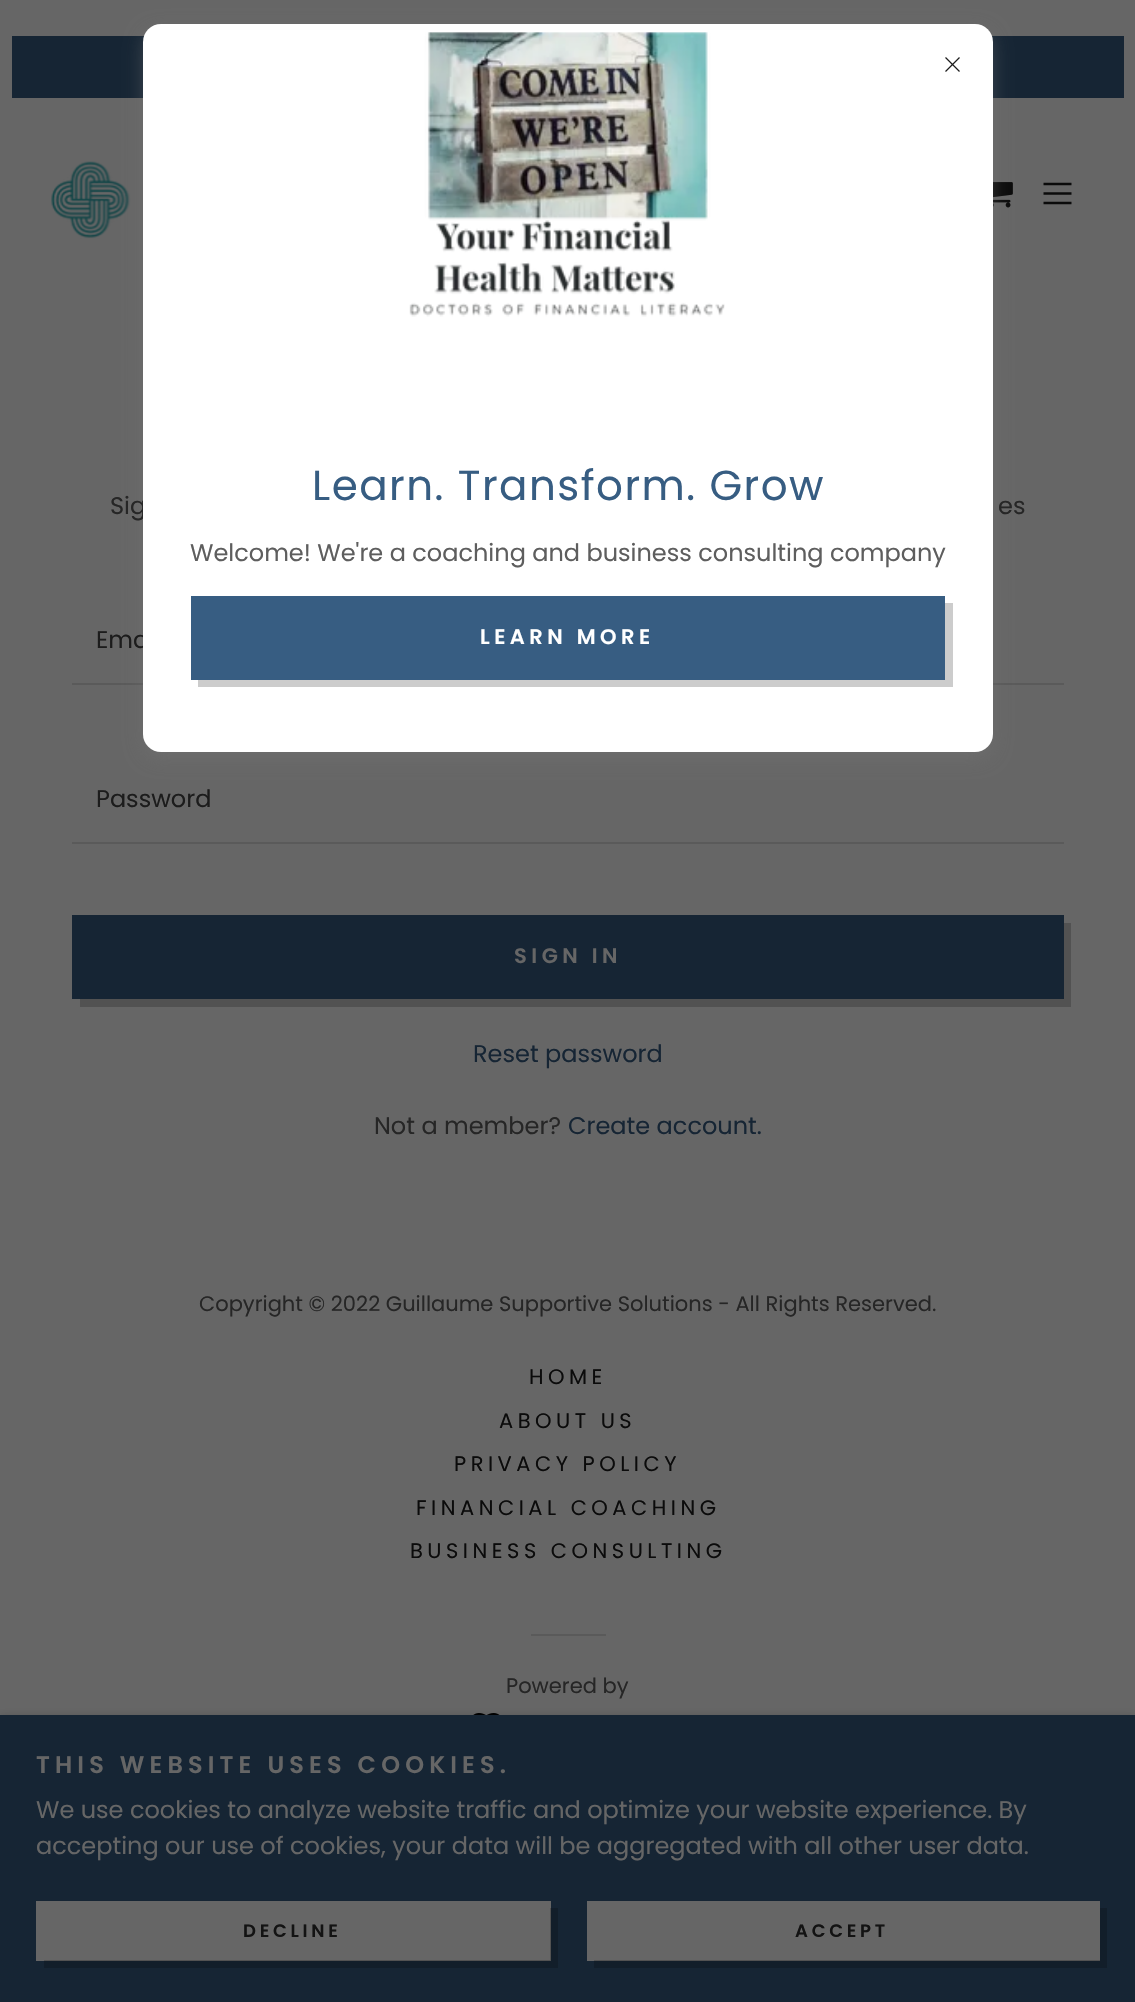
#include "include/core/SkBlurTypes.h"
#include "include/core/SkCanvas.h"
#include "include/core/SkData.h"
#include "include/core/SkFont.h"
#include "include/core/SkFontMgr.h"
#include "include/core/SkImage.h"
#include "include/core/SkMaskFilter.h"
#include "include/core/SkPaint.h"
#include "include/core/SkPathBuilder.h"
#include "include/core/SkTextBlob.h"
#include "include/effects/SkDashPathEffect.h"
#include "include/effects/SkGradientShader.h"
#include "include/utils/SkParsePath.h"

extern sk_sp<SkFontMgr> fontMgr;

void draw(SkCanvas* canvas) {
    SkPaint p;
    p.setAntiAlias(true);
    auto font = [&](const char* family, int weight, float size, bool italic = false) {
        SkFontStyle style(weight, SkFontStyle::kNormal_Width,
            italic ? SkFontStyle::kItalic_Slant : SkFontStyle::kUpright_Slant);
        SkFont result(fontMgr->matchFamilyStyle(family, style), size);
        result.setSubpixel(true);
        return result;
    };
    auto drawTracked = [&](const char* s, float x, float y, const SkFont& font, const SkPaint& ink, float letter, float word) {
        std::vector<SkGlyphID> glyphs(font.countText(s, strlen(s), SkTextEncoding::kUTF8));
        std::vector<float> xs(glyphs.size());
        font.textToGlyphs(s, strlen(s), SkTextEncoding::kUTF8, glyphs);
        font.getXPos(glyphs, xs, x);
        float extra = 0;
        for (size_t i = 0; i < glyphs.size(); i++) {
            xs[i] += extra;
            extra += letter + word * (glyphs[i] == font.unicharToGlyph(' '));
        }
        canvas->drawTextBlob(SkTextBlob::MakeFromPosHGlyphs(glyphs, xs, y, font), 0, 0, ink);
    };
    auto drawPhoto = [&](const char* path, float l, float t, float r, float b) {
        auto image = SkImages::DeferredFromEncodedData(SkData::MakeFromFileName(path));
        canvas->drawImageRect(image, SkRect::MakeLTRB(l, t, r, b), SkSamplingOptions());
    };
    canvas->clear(0xFF666666);
    p.setColor(0xFF162534);
    canvas->drawRect(SkRect::MakeLTRB(12, 36, 1124, 98), p);
    drawPhoto("media/1.png", 51, 161, 143, 239);
    drawPhoto("media/2.png", 993, 182, 1013, 208);
    p.setStyle(SkPaint::kStroke_Style);
    p.setStrokeWidth(2.6f);
    p.setStrokeCap(SkPaint::kSquare_Cap);
    p.setColor(0xFF0B0B0B);
    canvas->drawPath(SkPathBuilder().moveTo(1043.5f, 184).lineTo(1071.5f, 184).close().moveTo(1043.5f, 193.5f).lineTo(1071.5f, 193.5f).close().moveTo(1043.5f, 203).lineTo(1071.5f, 203).close().detach(), p);
    p.setStyle(SkPaint::kFill_Style);
    p.setColor(0xFF5A5A5A);
    canvas->drawRect(SkRect::MakeLTRB(72, 683, 1064, 685), p);
    p.setColor(0x66757575);
    p.setMaskFilter(SkMaskFilter::MakeBlur(kNormal_SkBlurStyle, 9));
    canvas->drawRoundRect(SkRect::MakeLTRB(143, 30, 993, 758), 18, 18, p);
    p.setMaskFilter(nullptr);
    auto font1 = font("Poppins", 400, 24);
    p.setColor(0xFF262626);
    canvas->drawString("Sig", 110, 514, font1, p);
    p.setColor(0xFF1C1C1C);
    canvas->drawString("Ema", 96, 648, font1, p);
    p.setColor(0xFFFFFFFF);
    canvas->drawRoundRect(SkRect::MakeLTRB(143, 24, 993, 752), 18, 18, p);
    drawPhoto("media/3.png", 945, 57, 960, 72);
    drawPhoto("media/4.png", 409, 32, 725, 317);
    auto font2 = font("Poppins", 400, 42);
    p.setColor(0xFF375D82);
    drawTracked("Learn. Transform. Grow", 312, 500, font2, p, 1.5f, 0);
    p.setColor(0xFF5E5E5E);
    canvas->drawString("Welcome! We're a coaching and business consulting company", 190, 561, font1, p);
    p.setColor(0xFF375D82);
    canvas->drawRect(SkRect::MakeLTRB(191, 596, 945, 680), p);
    p.setColor(0xFFCCCCCC);
    canvas->drawPath(SkPathBuilder().moveTo(198, 680).lineTo(198, 687).lineTo(953, 687).lineTo(953, 603).lineTo(945, 603).lineTo(945, 680).close().detach(), p);
    auto font3 = font("Poppins", 600, 21);
    p.setColor(0xFFFFFFFF);
    drawTracked("LEARN MORE", 480, 644, font3, p, 4.5f, 0);
    p.setColor(0xFF262626);
    canvas->drawString("es", 998, 514, font1, p);
    p.setColor(0xFF5A5A5A);
    canvas->drawRect(SkRect::MakeLTRB(72, 842, 1064, 844), p);
    p.setColor(0xFF1C1C1C);
    canvas->drawString("Password", 96, 807, font1, p);
    p.setColor(0xFF162534);
    canvas->drawRect(SkRect::MakeLTRB(72, 915, 1064, 999), p);
    p.setColor(0xFF525252);
    canvas->drawPath(SkPathBuilder().moveTo(80, 999).lineTo(80, 1007).lineTo(1071, 1007).lineTo(1071, 923).lineTo(1064, 923).lineTo(1064, 999).close().detach(), p);
    p.setColor(0xFF666666);
    drawTracked("SIGN IN", 514, 963, font3, p, 4.5f, 0);
    p.setColor(0xFF162534);
    canvas->drawString("Reset password", 473, 1062, font1, p);
    p.setColor(0xFF262626);
    canvas->drawString("Not a member?", 374, 1134, font1, p);
    p.setColor(0xFF162534);
    canvas->drawString("Create account.", 568, 1134, font1, p);
    auto font4 = font("Poppins", 400, 21);
    p.setColor(0xFF262626);
    canvas->drawString("Copyright © 2022 Guillaume Supportive Solutions - All Rights Reserved.", 199, 1311, font4, p);
    p.setColor(0xFF0B0B0B);
    {
        const struct { const char* s; float x, y; } items[] = {
            {"HOME", 529, 1384},
            {"ABOUT US", 499, 1428},
            {"PRIVACY POLICY", 454, 1471},
            {"FINANCIAL COACHING", 416, 1515},
            {"BUSINESS CONSULTING", 410, 1558},
        };
        for (auto [s, x, y] : items) {
            drawTracked(s, x, y, font4, p, 4.5f, 0);
        }
    }
    p.setColor(0xFF5A5A5A);
    canvas->drawRect(SkRect::MakeLTRB(531, 1634, 606, 1636), p);
    p.setColor(0xFF262626);
    canvas->drawString("Powered by", 506, 1693, font4, p);
    drawPhoto("media/5.png", 473, 1713, 500, 1715);
    p.setColor(0x4D000000);
    p.setMaskFilter(SkMaskFilter::MakeBlur(kNormal_SkBlurStyle, 4.5f));
    canvas->drawRect(SkRect::MakeLTRB(0, 1718, 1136, 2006), p);
    p.setMaskFilter(nullptr);
    p.setColor(0xFF162534);
    canvas->drawRect(SkRect::MakeLTRB(0, 1715, 1135, 2002), p);
    auto font5 = font("Poppins", 600, 24);
    p.setColor(0xFF666666);
    drawTracked("THIS WEBSITE USES COOKIES.", 36, 1773, font5, p, 5.15f, 0);
    canvas->drawString("We use cookies to analyze website traffic and optimize your website experience. By", 36, 1818, font1, p);
    canvas->drawString("accepting our use of cookies, your data will be aggregated with all other user data.", 36, 1854, font1, p);
    canvas->drawRect(SkRect::MakeLTRB(36, 1901, 551, 1961), p);
    p.setColor(0x33000000);
    canvas->drawPath(SkPathBuilder().moveTo(44, 1960).lineTo(44, 1968).lineTo(558, 1968).lineTo(558, 1908).lineTo(550, 1908).lineTo(550, 1960).close().detach(), p);
    auto font6 = font("Poppins", 600, 18);
    p.setColor(0xFF131313);
    drawTracked("DECLINE", 243, 1937, font6, p, 3.75f, 0);
    p.setColor(0xFF666666);
    canvas->drawRect(SkRect::MakeLTRB(587, 1901, 1100, 1961), p);
    p.setColor(0x33000000);
    canvas->drawPath(SkPathBuilder().moveTo(594, 1960).lineTo(594, 1968).lineTo(1107, 1968).lineTo(1107, 1908).lineTo(1100, 1908).lineTo(1100, 1960).close().detach(), p);
    p.setColor(0xFF131313);
    drawTracked("ACCEPT", 795, 1937, font6, p, 3.75f, 0);
}
